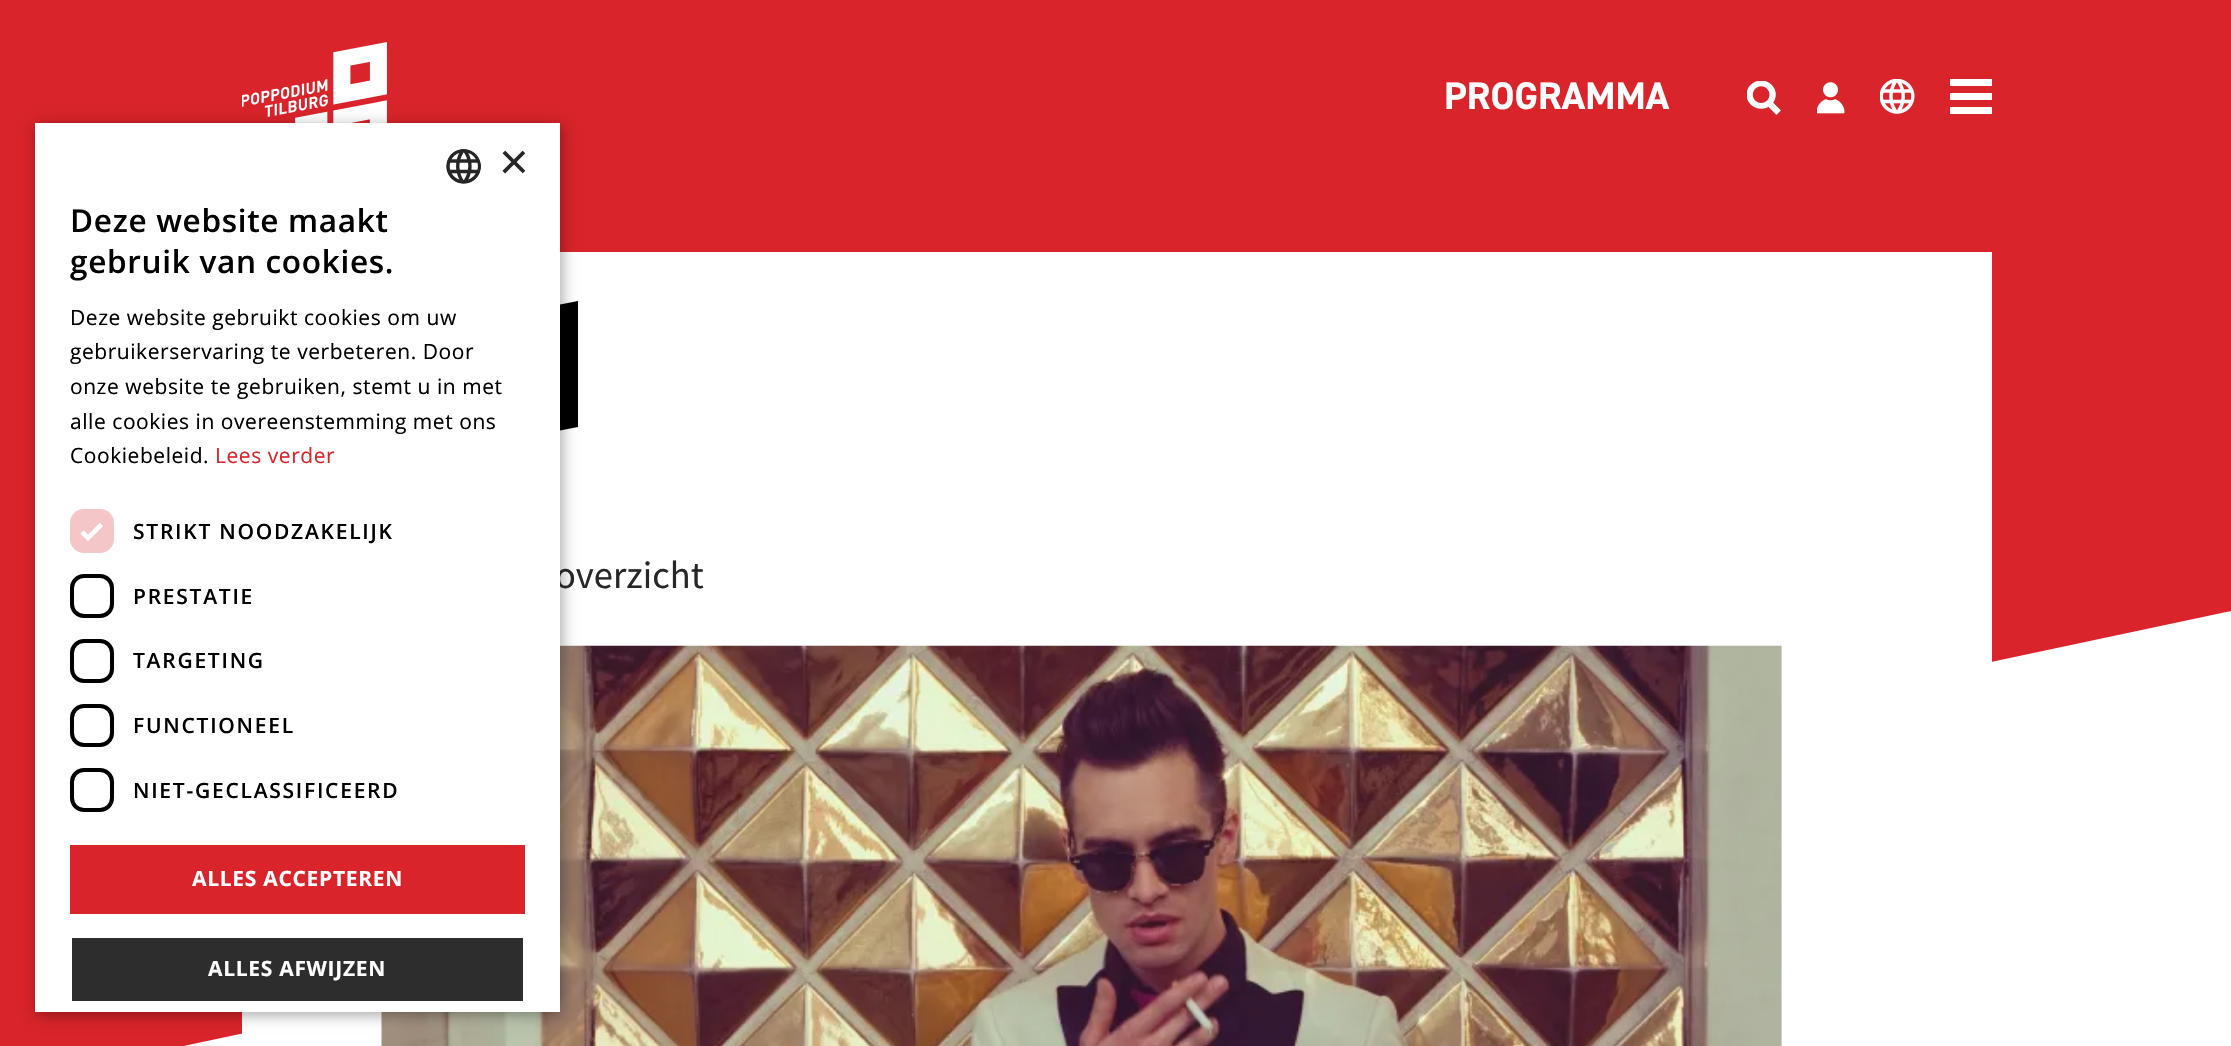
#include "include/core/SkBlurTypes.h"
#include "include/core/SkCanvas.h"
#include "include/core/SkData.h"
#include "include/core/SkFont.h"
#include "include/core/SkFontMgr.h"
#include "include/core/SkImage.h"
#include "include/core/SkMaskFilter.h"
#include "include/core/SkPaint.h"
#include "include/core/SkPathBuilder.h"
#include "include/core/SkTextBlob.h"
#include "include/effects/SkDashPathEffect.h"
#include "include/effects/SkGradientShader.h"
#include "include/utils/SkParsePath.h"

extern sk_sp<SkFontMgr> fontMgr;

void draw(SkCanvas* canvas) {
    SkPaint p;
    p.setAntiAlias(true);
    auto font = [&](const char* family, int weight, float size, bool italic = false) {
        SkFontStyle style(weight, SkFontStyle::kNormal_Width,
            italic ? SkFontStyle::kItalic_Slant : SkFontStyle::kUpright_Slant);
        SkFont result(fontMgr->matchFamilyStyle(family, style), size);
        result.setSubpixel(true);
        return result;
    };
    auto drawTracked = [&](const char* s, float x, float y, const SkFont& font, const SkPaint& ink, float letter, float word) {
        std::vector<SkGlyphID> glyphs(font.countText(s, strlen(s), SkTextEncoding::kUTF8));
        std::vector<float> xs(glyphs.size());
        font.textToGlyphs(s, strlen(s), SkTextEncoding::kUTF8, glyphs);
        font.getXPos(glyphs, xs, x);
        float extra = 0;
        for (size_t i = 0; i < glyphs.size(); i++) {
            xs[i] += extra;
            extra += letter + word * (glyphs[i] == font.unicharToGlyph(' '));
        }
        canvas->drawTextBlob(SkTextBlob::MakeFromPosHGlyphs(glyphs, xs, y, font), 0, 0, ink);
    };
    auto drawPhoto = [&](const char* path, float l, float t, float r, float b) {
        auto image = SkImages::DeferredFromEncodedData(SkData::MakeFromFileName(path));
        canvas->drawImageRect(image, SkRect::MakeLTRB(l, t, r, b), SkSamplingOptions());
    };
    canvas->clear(0xFFFFFFFF);
    p.setColor(0xFFD8242A);
    canvas->drawPath(SkPathBuilder().moveTo(0, 0).lineTo(2231, -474).lineTo(2231, 611).lineTo(0, 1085).close().detach(), p);
    drawPhoto("media/1.png", 242, 42, 387, 123);
    auto font1 = font("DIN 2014", 700, 38.5f);
    p.setColor(0xFFFFFFFF);
    canvas->drawString("PROGRAMMA", 1444, 109, font1, p);
    drawPhoto("media/2.png", 1747, 81, 1781, 115);
    drawPhoto("media/3.png", 1817, 82, 1845, 114);
    drawPhoto("media/4.png", 1880, 79, 1915, 114);
    {
        const struct { float l, t, r, b; SkColor color; } items[] = {
            {1950, 79, 1992, 86, 0xFFFFFFFF},
            {1950, 93, 1992, 100, 0xFFFFFFFF},
            {1950, 107, 1992, 114, 0xFFFFFFFF},
            {242, 252, 1992, 1034, 0xFFFFFFFF},
        };
        for (auto [l, t, r, b, color] : items) {
            p.setColor(color);
            canvas->drawRect(SkRect::MakeLTRB(l, t, r, b), p);
        }
    }
    p.setColor(0xFF000000);
    canvas->drawPath(SkPathBuilder().moveTo(220, 371).lineTo(578, 301).lineTo(578, 427).lineTo(220, 497).close().detach(), p);
    p.setColor(0xFFF5F5F5);
    canvas->drawRect(SkRect::MakeLTRB(1781, 646, 1782, 1046), p);
    drawPhoto("media/6.png", 381, 645, 1782, 1046);
    p.setColor(0x59000000);
    p.setMaskFilter(SkMaskFilter::MakeBlur(kNormal_SkBlurStyle, 7));
    canvas->drawRect(SkRect::MakeLTRB(37, 126, 562, 1015), p);
    p.setMaskFilter(nullptr);
    auto font2 = font("Source Sans Pro", 400, 38.5f);
    p.setColor(0xFF27272A);
    canvas->drawString("overzicht", 555, 588, font2, p);
    p.setColor(0xFFFFFFFF);
    canvas->drawRect(SkRect::MakeLTRB(35, 123, 560, 1012), p);
    drawPhoto("media/5.png", 446, 149, 481, 184);
    auto font3 = font("Liberation Sans", 400, 51);
    p.setColor(0xFF27272A);
    canvas->drawString("×", 499, 179, font3, p);
    auto font4 = font("Open Sans", 600, 31.5f);
    p.setColor(0xFF000000);
    drawTracked("Deze website maakt", 70, 232, font4, p, 0.7f, 0);
    drawTracked("gebruik van cookies.", 70, 273, font4, p, 0.7f, 0);
    auto font5 = font("Open Sans", 400, 21);
    {
        const struct { const char* s; float x, y; } items[] = {
            {"Deze website gebruikt cookies om uw", 70, 325},
            {"gebruikerservaring te verbeteren. Door", 70, 359},
            {"onze website te gebruiken, stemt u in met", 70, 394},
            {"alle cookies in overeenstemming met ons", 70, 429},
            {"Cookiebeleid.", 70, 463},
        };
        for (auto [s, x, y] : items) {
            drawTracked(s, x, y, font5, p, 0.55f, 0);
        }
    }
    p.setColor(0xFFD8242A);
    drawTracked("Lees verder", 215, 463, font5, p, 0.55f, 0);
    p.setColor(0xFFF5C6C8);
    canvas->drawRoundRect(SkRect::MakeLTRB(70, 509, 114, 553), 14, 14, p);
    p.setStyle(SkPaint::kStroke_Style);
    p.setStrokeWidth(4.6f);
    p.setColor(0xFFFFFFFF);
    canvas->drawPath(SkPathBuilder().moveTo(82, 532).lineTo(88, 538).lineTo(101.5f, 524.5f).detach(), p);
    auto font6 = font("Open Sans", 600, 21);
    p.setStyle(SkPaint::kFill_Style);
    p.setColor(0xFF000000);
    drawTracked("STRIKT NOODZAKELIJK", 133, 539, font6, p, 1.75f, 0);
    p.setStyle(SkPaint::kStroke_Style);
    p.setStrokeWidth(4);
    canvas->drawRoundRect(SkRect::MakeLTRB(72, 576, 112, 616), 12, 12, p);
    p.setStyle(SkPaint::kFill_Style);
    drawTracked("PRESTATIE", 133, 604, font6, p, 1.75f, 0);
    p.setStyle(SkPaint::kStroke_Style);
    canvas->drawRoundRect(SkRect::MakeLTRB(72, 641, 112, 681), 12, 12, p);
    p.setStyle(SkPaint::kFill_Style);
    drawTracked("TARGETING", 133, 668, font6, p, 1.75f, 0);
    p.setStyle(SkPaint::kStroke_Style);
    canvas->drawRoundRect(SkRect::MakeLTRB(72, 706, 112, 745), 12, 12, p);
    p.setStyle(SkPaint::kFill_Style);
    drawTracked("FUNCTIONEEL", 133, 733, font6, p, 1.75f, 0);
    p.setStyle(SkPaint::kStroke_Style);
    canvas->drawRoundRect(SkRect::MakeLTRB(72, 770, 112, 810), 12, 12, p);
    p.setStyle(SkPaint::kFill_Style);
    drawTracked("NIET-GECLASSIFICEERD", 133, 798, font6, p, 1.75f, 0);
    p.setColor(0xFFD8242A);
    canvas->drawRect(SkRect::MakeLTRB(70, 845, 525, 914), p);
    auto font7 = font("Open Sans", 700, 21);
    p.setColor(0xFFFFFFFF);
    drawTracked("ALLES ACCEPTEREN", 192, 886, font7, p, 0.7f, 0);
    p.setColor(0xFF2D2D2D);
    canvas->drawRect(SkRect::MakeLTRB(72, 938, 523, 1001), p);
    p.setColor(0xFFFFFFFF);
    drawTracked("ALLES AFWIJZEN", 208, 976, font7, p, 0.7f, 0);
}
